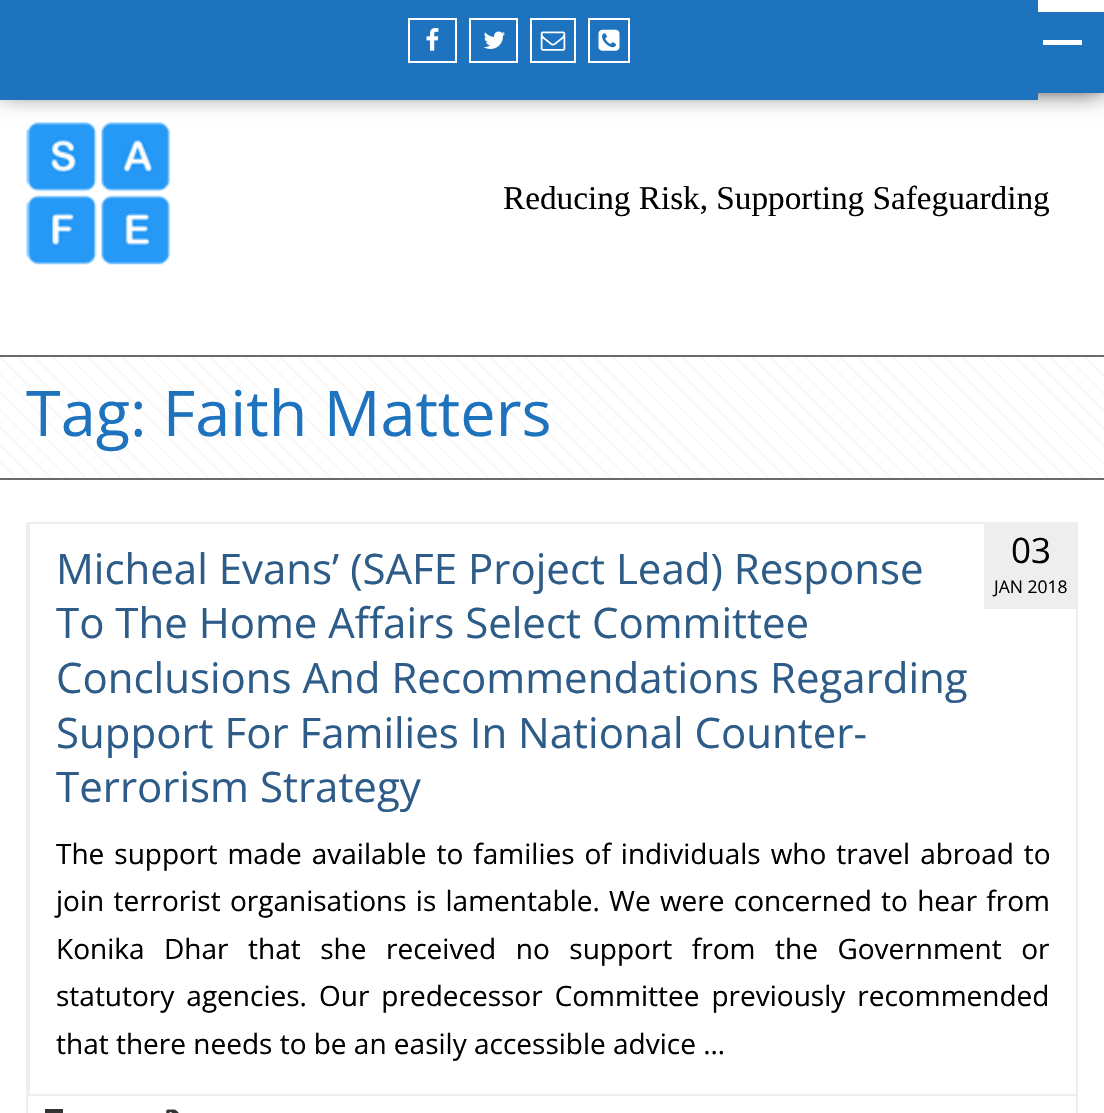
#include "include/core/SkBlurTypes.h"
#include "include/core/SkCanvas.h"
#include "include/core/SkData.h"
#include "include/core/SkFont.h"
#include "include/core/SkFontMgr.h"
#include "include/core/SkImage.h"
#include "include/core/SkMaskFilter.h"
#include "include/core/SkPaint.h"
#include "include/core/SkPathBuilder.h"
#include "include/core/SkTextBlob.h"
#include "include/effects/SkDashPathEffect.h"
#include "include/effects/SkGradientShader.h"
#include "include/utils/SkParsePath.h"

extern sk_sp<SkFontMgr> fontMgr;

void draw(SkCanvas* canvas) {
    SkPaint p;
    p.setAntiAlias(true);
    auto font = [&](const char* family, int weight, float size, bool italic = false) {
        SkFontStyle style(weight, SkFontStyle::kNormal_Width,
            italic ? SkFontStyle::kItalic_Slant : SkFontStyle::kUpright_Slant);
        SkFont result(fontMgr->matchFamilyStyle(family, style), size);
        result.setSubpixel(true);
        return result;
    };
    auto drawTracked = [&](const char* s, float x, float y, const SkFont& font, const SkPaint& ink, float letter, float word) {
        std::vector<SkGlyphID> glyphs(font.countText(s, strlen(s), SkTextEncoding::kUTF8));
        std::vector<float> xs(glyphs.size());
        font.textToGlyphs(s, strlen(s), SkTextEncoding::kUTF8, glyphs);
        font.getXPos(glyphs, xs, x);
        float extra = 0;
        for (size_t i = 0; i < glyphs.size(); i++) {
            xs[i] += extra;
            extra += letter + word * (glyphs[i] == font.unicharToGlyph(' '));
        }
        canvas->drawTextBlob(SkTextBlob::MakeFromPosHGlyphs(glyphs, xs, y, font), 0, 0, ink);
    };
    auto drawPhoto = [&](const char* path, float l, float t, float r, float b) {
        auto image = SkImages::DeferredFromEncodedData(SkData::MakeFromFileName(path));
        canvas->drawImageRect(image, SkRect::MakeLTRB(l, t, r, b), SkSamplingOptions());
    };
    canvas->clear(0xFFFFFFFF);
    p.setColor(0xFF000000);
    p.setMaskFilter(SkMaskFilter::MakeBlur(kNormal_SkBlurStyle, 13));
    canvas->drawRect(SkRect::MakeLTRB(0, 0, 1104, 88), p);
    p.setMaskFilter(nullptr);
    {
        const struct { float l, t, r, b; SkColor color; } items[] = {
            {1038, 0, 1104, 12, 0xFFFFFFFF},
            {1038, 12, 1104, 93, 0xFF1E73BE},
            {1043, 40, 1082, 45, 0xFFFFFFFF},
            {0, 0, 1038, 100, 0xFF1E73BE},
        };
        for (auto [l, t, r, b, color] : items) {
            p.setColor(color);
            canvas->drawRect(SkRect::MakeLTRB(l, t, r, b), p);
        }
    }
    p.setStyle(SkPaint::kStroke_Style);
    p.setStrokeWidth(2);
    p.setColor(0xFFFFFFFF);
    canvas->drawRect(SkRect::MakeLTRB(409, 19, 456, 62), p);
    drawPhoto("media/1.png", 426, 28, 439, 51);
    canvas->drawRect(SkRect::MakeLTRB(470, 19, 517, 62), p);
    drawPhoto("media/2.png", 483, 31, 505, 49);
    canvas->drawRect(SkRect::MakeLTRB(531, 19, 575, 62), p);
    drawPhoto("media/3.png", 540, 31, 566, 51);
    canvas->drawRect(SkRect::MakeLTRB(589, 19, 629, 62), p);
    drawPhoto("media/4.png", 598, 29, 620, 51);
    drawPhoto("media/5.png", 26, 122, 170, 265);
    auto font1 = font("Liberation Serif", 400, 33.25f);
    p.setStyle(SkPaint::kFill_Style);
    p.setColor(0xFF000000);
    canvas->drawString("Reducing Risk, Supporting Safeguarding", 503, 209, font1, p);
    drawPhoto("media/6.png", 0, 357, 1104, 478);
    p.setColor(0xFF6A6A6A);
    canvas->drawRect(SkRect::MakeLTRB(0, 355, 1104, 357), p);
    canvas->drawRect(SkRect::MakeLTRB(0, 478, 1104, 480), p);
    auto font2 = font("Open Sans", 400, 63);
    p.setColor(0xFF1E73BE);
    canvas->drawString("Tag: Faith Matters", 26, 436, font2, p);
    p.setStyle(SkPaint::kStroke_Style);
    p.setColor(0xFFEEEEEE);
    canvas->drawRect(SkRect::MakeLTRB(27, 523, 1077, 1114), p);
    p.setStyle(SkPaint::kFill_Style);
    canvas->drawRect(SkRect::MakeLTRB(28, 523, 30, 1094), p);
    auto font3 = font("Open Sans", 400, 42);
    p.setColor(0xFF2D5C88);
    {
        const struct { const char* s; float x, y; } items[] = {
            {"Micheal Evans’ (SAFE Project Lead) Response", 56, 584},
            {"To The Home Affairs Select Committee", 56, 638},
            {"Conclusions And Recommendations Regarding", 56, 693},
            {"Support For Families In National Counter-", 56, 748},
            {"Terrorism Strategy", 56, 802},
        };
        for (auto [s, x, y] : items) {
            canvas->drawString(s, x, y, font3, p);
        }
    }
    p.setColor(0xFFEEEEEE);
    canvas->drawRect(SkRect::MakeLTRB(984, 524, 1076, 609), p);
    auto font4 = font("Open Sans", 400, 35);
    p.setColor(0xFF000000);
    canvas->drawString("03", 1011, 563, font4, p);
    auto font5 = font("Open Sans", 400, 17.5f);
    canvas->drawString("JAN 2018", 994, 593, font5, p);
    auto font6 = font("Open Sans", 400, 28);
    drawTracked("The support made available to families of individuals who travel abroad to", 56, 864, font6, p, 0, 2.75f);
    drawTracked("join terrorist organisations is lamentable. We were concerned to hear from", 56, 911, font6, p, 0, 2);
    drawTracked("Konika Dhar that she received no support from the Government or", 56, 959, font6, p, 0, 12.25f);
    drawTracked("statutory agencies. Our predecessor Committee previously recommended", 56, 1006, font6, p, 0, 4.75f);
    canvas->drawString("that there needs to be an easily accessible advice …", 56, 1054, font6, p);
    p.setColor(0xFFEEEEEE);
    canvas->drawRect(SkRect::MakeLTRB(28, 1094, 1076, 1096), p);
    p.setColor(0xFF333333);
    canvas->drawRect(SkRect::MakeLTRB(45, 1109, 63, 1113), p);
    drawPhoto("media/7.png", 166, 1109, 179, 1113);
}
